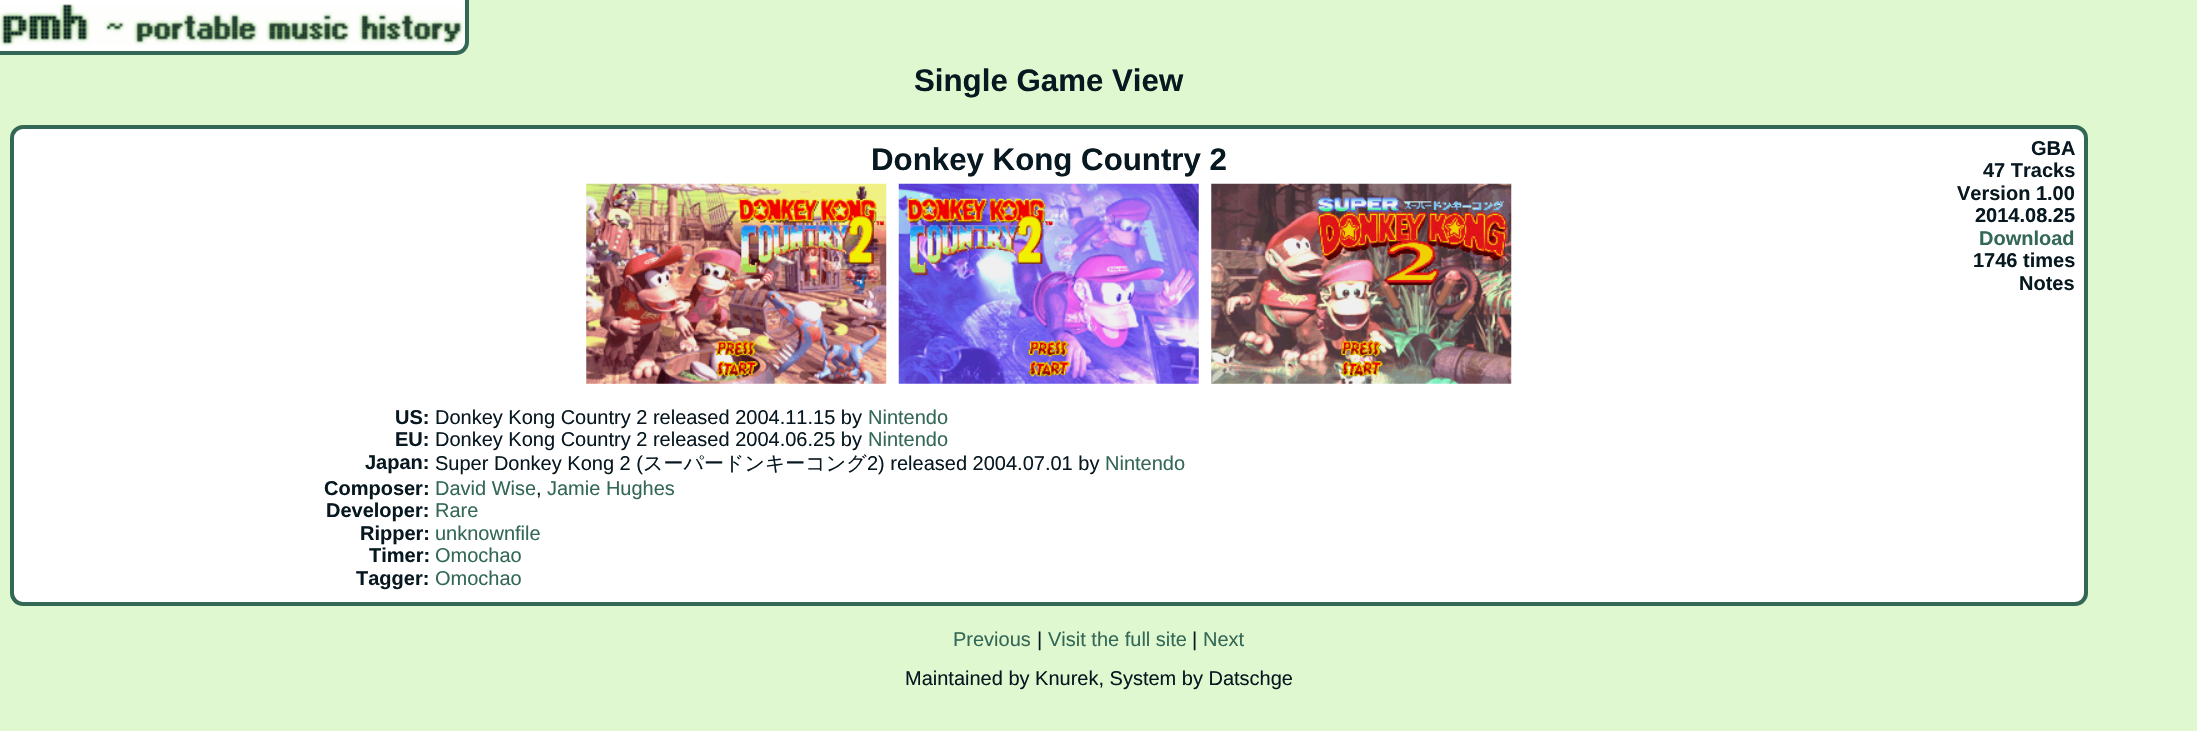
#include "include/core/SkBlurTypes.h"
#include "include/core/SkCanvas.h"
#include "include/core/SkData.h"
#include "include/core/SkFont.h"
#include "include/core/SkFontMgr.h"
#include "include/core/SkImage.h"
#include "include/core/SkMaskFilter.h"
#include "include/core/SkPaint.h"
#include "include/core/SkPathBuilder.h"
#include "include/core/SkTextBlob.h"
#include "include/effects/SkDashPathEffect.h"
#include "include/effects/SkGradientShader.h"
#include "include/utils/SkParsePath.h"

extern sk_sp<SkFontMgr> fontMgr;

void draw(SkCanvas* canvas) {
    SkPaint p;
    p.setAntiAlias(true);
    auto font = [&](const char* family, int weight, float size, bool italic = false) {
        SkFontStyle style(weight, SkFontStyle::kNormal_Width,
            italic ? SkFontStyle::kItalic_Slant : SkFontStyle::kUpright_Slant);
        SkFont result(fontMgr->matchFamilyStyle(family, style), size);
        result.setSubpixel(true);
        return result;
    };
    auto drawPhoto = [&](const char* path, float l, float t, float r, float b) {
        auto image = SkImages::DeferredFromEncodedData(SkData::MakeFromFileName(path));
        canvas->drawImageRect(image, SkRect::MakeLTRB(l, t, r, b), SkSamplingOptions());
    };
    canvas->clear(0xFFE0F8D0);
    p.setColor(0xFFFFFFFF);
    canvas->drawRoundRect(SkRect::MakeLTRB(-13, -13, 469, 55), 13, 13, p);
    drawPhoto("media/1.png", 0, 4, 464, 46);
    p.setStyle(SkPaint::kStroke_Style);
    p.setStrokeWidth(4);
    p.setColor(0xFF346856);
    canvas->drawRoundRect(SkRect::MakeLTRB(-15, -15, 467, 53), 11, 11, p);
    auto font1 = font("Liberation Sans", 700, 31.25f);
    p.setStyle(SkPaint::kFill_Style);
    p.setColor(0xFF081820);
    canvas->drawString("Single Game View", 914, 91, font1, p);
    p.setColor(0xFFFFFFFF);
    canvas->drawRoundRect(SkRect::MakeLTRB(12, 127, 2086, 604), 11, 11, p);
    p.setStyle(SkPaint::kStroke_Style);
    p.setColor(0xFF346856);
    canvas->drawRoundRect(SkRect::MakeLTRB(12, 127, 2086, 604), 11, 11, p);
    p.setStyle(SkPaint::kFill_Style);
    p.setColor(0xFF081820);
    canvas->drawString("Donkey Kong Country 2", 871, 170, font1, p);
    drawPhoto("media/2.png", 586, 183, 887, 384);
    drawPhoto("media/3.png", 898, 183, 1199, 384);
    drawPhoto("media/4.png", 1211, 183, 1512, 384);
    auto font2 = font("Liberation Sans", 700, 20);
    canvas->drawString("US:", 395, 424, font2, p);
    auto font3 = font("Liberation Sans", 400, 20);
    canvas->drawString("Donkey Kong Country 2 released 2004.11.15 by", 435, 424, font3, p);
    p.setColor(0xFF346856);
    canvas->drawString("Nintendo", 868, 424, font3, p);
    p.setColor(0xFF081820);
    canvas->drawString("EU:", 395, 446, font2, p);
    canvas->drawString("Donkey Kong Country 2 released 2004.06.25 by", 435, 446, font3, p);
    p.setColor(0xFF346856);
    canvas->drawString("Nintendo", 868, 446, font3, p);
    p.setColor(0xFF081820);
    canvas->drawString("Japan:", 365, 469, font2, p);
    canvas->drawString("Super Donkey Kong 2 (", 435, 470, font3, p);
    auto font4 = font("WenQuanYi Zen Hei", 500, 20);
    canvas->drawString("スーパードンキーコング", 643, 470, font4, p);
    canvas->drawString("2) released 2004.07.01 by", 867, 470, font3, p);
    p.setColor(0xFF346856);
    canvas->drawString("Nintendo", 1105, 470, font3, p);
    p.setColor(0xFF081820);
    canvas->drawString("Composer:", 324, 495, font2, p);
    p.setColor(0xFF346856);
    canvas->drawString("David Wise", 435, 495, font3, p);
    p.setColor(0xFF081820);
    canvas->drawString(",", 536, 495, font3, p);
    p.setColor(0xFF346856);
    canvas->drawString("Jamie Hughes", 547, 495, font3, p);
    p.setColor(0xFF081820);
    canvas->drawString("Developer:", 326, 517, font2, p);
    p.setColor(0xFF346856);
    canvas->drawString("Rare", 435, 517, font3, p);
    p.setColor(0xFF081820);
    canvas->drawString("Ripper:", 360, 540, font2, p);
    p.setColor(0xFF346856);
    canvas->drawString("unknownfile", 435, 540, font3, p);
    p.setColor(0xFF081820);
    canvas->drawString("Timer:", 369, 562, font2, p);
    p.setColor(0xFF346856);
    canvas->drawString("Omochao", 435, 562, font3, p);
    p.setColor(0xFF081820);
    canvas->drawString("Tagger:", 356, 585, font2, p);
    p.setColor(0xFF346856);
    canvas->drawString("Omochao", 435, 585, font3, p);
    p.setColor(0xFF081820);
    {
        const struct { const char* s; float x, y; } items[] = {
            {"GBA", 2031, 155},
            {"47 Tracks", 1983, 177},
            {"Version 1.00", 1957, 200},
            {"2014.08.25", 1975, 222},
        };
        for (auto [s, x, y] : items) {
            canvas->drawString(s, x, y, font2, p);
        }
    }
    p.setColor(0xFF346856);
    canvas->drawString("Download", 1979, 245, font2, p);
    p.setColor(0xFF081820);
    canvas->drawString("1746 times", 1973, 267, font2, p);
    canvas->drawString("Notes", 2019, 290, font2, p);
    p.setColor(0xFF346856);
    canvas->drawString("Previous", 953, 646, font3, p);
    p.setColor(0xFF081820);
    canvas->drawString("|", 1037, 646, font3, p);
    p.setColor(0xFF346856);
    canvas->drawString("Visit the full site", 1048, 646, font3, p);
    p.setColor(0xFF081820);
    canvas->drawString("|", 1192, 646, font3, p);
    p.setColor(0xFF346856);
    canvas->drawString("Next", 1203, 646, font3, p);
    p.setColor(0xFF081820);
    canvas->drawString("Maintained by Knurek, System by Datschge", 905, 685, font3, p);
}
